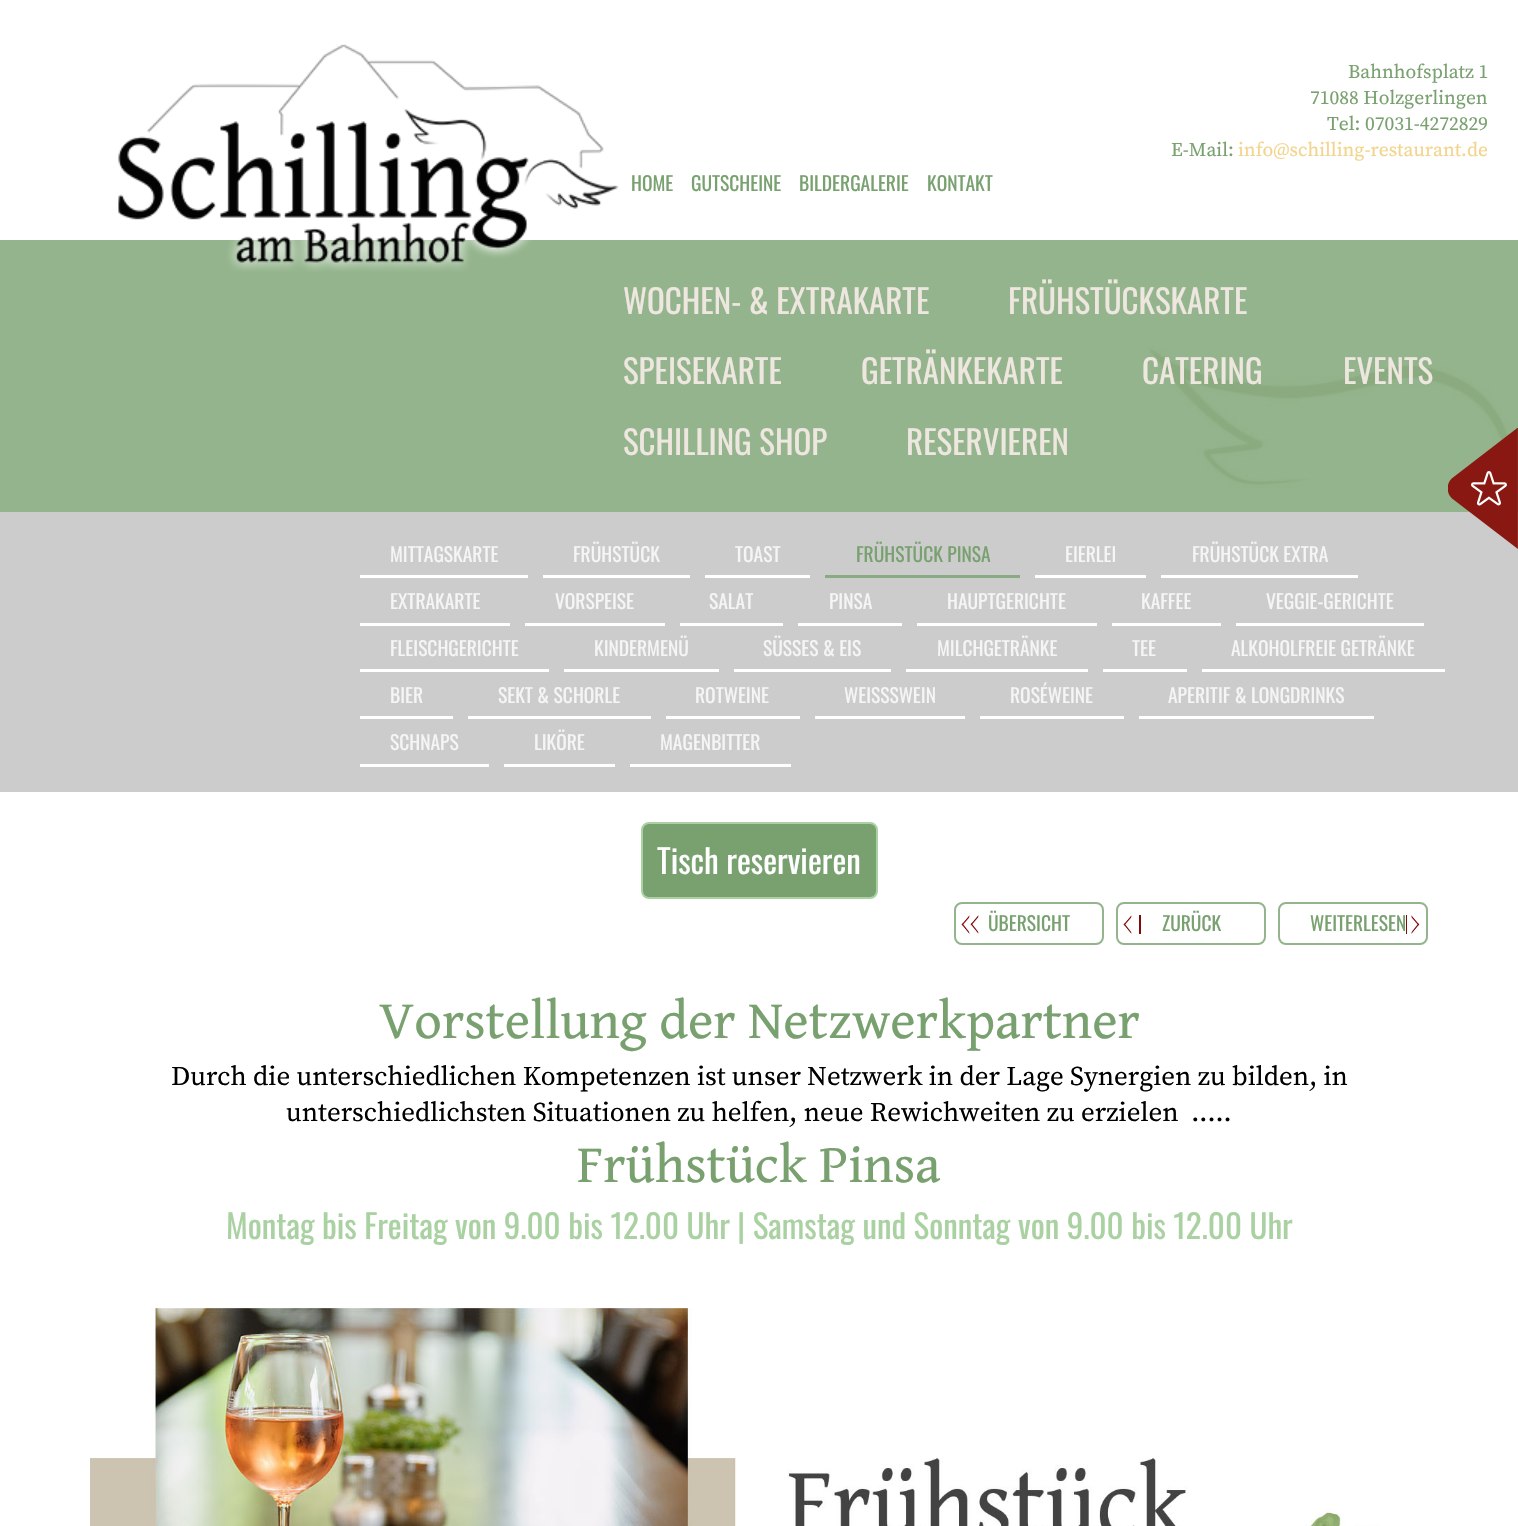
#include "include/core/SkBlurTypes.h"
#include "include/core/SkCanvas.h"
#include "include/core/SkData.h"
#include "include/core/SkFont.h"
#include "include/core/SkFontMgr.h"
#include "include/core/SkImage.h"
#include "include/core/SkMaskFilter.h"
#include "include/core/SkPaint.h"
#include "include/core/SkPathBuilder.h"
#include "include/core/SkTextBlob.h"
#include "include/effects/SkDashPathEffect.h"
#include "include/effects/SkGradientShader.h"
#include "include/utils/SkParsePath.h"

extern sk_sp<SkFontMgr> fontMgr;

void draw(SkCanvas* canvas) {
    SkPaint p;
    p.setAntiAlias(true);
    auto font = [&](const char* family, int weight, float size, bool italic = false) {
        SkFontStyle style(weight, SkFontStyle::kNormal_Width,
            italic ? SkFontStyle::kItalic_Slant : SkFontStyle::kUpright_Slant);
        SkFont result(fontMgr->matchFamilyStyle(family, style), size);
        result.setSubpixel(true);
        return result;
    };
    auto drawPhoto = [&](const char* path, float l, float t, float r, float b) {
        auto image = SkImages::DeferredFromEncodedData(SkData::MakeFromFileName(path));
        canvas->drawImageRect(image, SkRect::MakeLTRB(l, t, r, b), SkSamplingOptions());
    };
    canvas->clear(0xFFFFFFFF);
    p.setColor(0xFF93B48C);
    canvas->drawRect(SkRect::MakeLTRB(0, 240, 1518, 512), p);
    drawPhoto("media/1.png", 1147, 346, 1516, 530);
    drawPhoto("media/2.png", 118, 44, 619, 272);
    auto font1 = font("Source Serif Pro", 400, 19.5f);
    p.setColor(0xFF78A16F);
    {
        const struct { const char* s; float x, y; } items[] = {
            {"Bahnhofsplatz 1", 1348, 78},
            {"71088 Holzgerlingen", 1310, 104},
            {"Tel: 07031-4272829", 1327, 130},
            {"E-Mail:", 1171, 156},
        };
        for (auto [s, x, y] : items) {
            canvas->drawString(s, x, y, font1, p);
        }
    }
    p.setColor(0xFFF2D48C);
    canvas->drawString("info@schilling-restaurant.de", 1238, 156, font1, p);
    auto font2 = font("Oswald", 400, 19.5f);
    p.setColor(0xFF78A16F);
    {
        const struct { const char* s; float x, y; } items[] = {
            {"HOME", 631, 191},
            {"GUTSCHEINE", 691, 191},
            {"BILDERGALERIE", 799, 191},
            {"KONTAKT", 927, 191},
        };
        for (auto [s, x, y] : items) {
            canvas->drawString(s, x, y, font2, p);
        }
    }
    auto font3 = font("Oswald", 400, 33);
    p.setColor(0xFFEEE7DF);
    {
        const struct { const char* s; float x, y; } items[] = {
            {"WOCHEN- & EXTRAKARTE", 623, 314},
            {"FRÜHSTÜCKSKARTE", 1008, 314},
            {"SPEISEKARTE", 623, 384},
            {"GETRÄNKEKARTE", 861, 384},
            {"CATERING", 1142, 384},
            {"EVENTS", 1343, 384},
            {"SCHILLING SHOP", 623, 455},
            {"RESERVIEREN", 906, 455},
        };
        for (auto [s, x, y] : items) {
            canvas->drawString(s, x, y, font3, p);
        }
    }
    p.setColor(0x33000000);
    canvas->drawRect(SkRect::MakeLTRB(0, 512, 1518, 792), p);
    drawPhoto("media/3.png", 1448, 428, 1518, 549);
    p.setColor(0xFFFFFFFF);
    canvas->drawRect(SkRect::MakeLTRB(360, 575, 528, 578), p);
    p.setColor(0xFFF5F5F5);
    canvas->drawString("MITTAGSKARTE", 390, 562, font2, p);
    p.setColor(0xFFFFFFFF);
    canvas->drawRect(SkRect::MakeLTRB(543, 575, 690, 578), p);
    p.setColor(0xFFF5F5F5);
    canvas->drawString("FRÜHSTÜCK", 573, 562, font2, p);
    p.setColor(0xFFFFFFFF);
    canvas->drawRect(SkRect::MakeLTRB(705, 575, 810, 578), p);
    p.setColor(0xFFF5F5F5);
    canvas->drawString("TOAST", 735, 562, font2, p);
    p.setColor(0xFF89AA82);
    canvas->drawRect(SkRect::MakeLTRB(825, 575, 1020, 578), p);
    p.setColor(0xFF78A16F);
    canvas->drawString("FRÜHSTÜCK PINSA", 856, 562, font2, p);
    p.setColor(0xFFFFFFFF);
    canvas->drawRect(SkRect::MakeLTRB(1035, 575, 1146, 578), p);
    p.setColor(0xFFF5F5F5);
    canvas->drawString("EIERLEI", 1065, 562, font2, p);
    p.setColor(0xFFFFFFFF);
    canvas->drawRect(SkRect::MakeLTRB(1161, 575, 1358, 578), p);
    p.setColor(0xFFF5F5F5);
    canvas->drawString("FRÜHSTÜCK EXTRA", 1192, 562, font2, p);
    p.setColor(0xFFFFFFFF);
    canvas->drawRect(SkRect::MakeLTRB(360, 623, 510, 626), p);
    p.setColor(0xFFF5F5F5);
    canvas->drawString("EXTRAKARTE", 390, 609, font2, p);
    p.setColor(0xFFFFFFFF);
    canvas->drawRect(SkRect::MakeLTRB(525, 623, 665, 626), p);
    p.setColor(0xFFF5F5F5);
    canvas->drawString("VORSPEISE", 555, 609, font2, p);
    p.setColor(0xFFFFFFFF);
    canvas->drawRect(SkRect::MakeLTRB(680, 623, 783, 626), p);
    p.setColor(0xFFF5F5F5);
    canvas->drawString("SALAT", 709, 609, font2, p);
    p.setColor(0xFFFFFFFF);
    canvas->drawRect(SkRect::MakeLTRB(798, 623, 902, 626), p);
    p.setColor(0xFFF5F5F5);
    canvas->drawString("PINSA", 829, 609, font2, p);
    p.setColor(0xFFFFFFFF);
    canvas->drawRect(SkRect::MakeLTRB(917, 623, 1097, 626), p);
    p.setColor(0xFFF5F5F5);
    canvas->drawString("HAUPTGERICHTE", 947, 609, font2, p);
    p.setColor(0xFFFFFFFF);
    canvas->drawRect(SkRect::MakeLTRB(1112, 623, 1221, 626), p);
    p.setColor(0xFFF5F5F5);
    canvas->drawString("KAFFEE", 1141, 609, font2, p);
    p.setColor(0xFFFFFFFF);
    canvas->drawRect(SkRect::MakeLTRB(1236, 623, 1424, 626), p);
    p.setColor(0xFFF5F5F5);
    canvas->drawString("VEGGIE-GERICHTE", 1266, 609, font2, p);
    p.setColor(0xFFFFFFFF);
    canvas->drawRect(SkRect::MakeLTRB(360, 669, 549, 672), p);
    p.setColor(0xFFF5F5F5);
    canvas->drawString("FLEISCHGERICHTE", 390, 656, font2, p);
    p.setColor(0xFFFFFFFF);
    canvas->drawRect(SkRect::MakeLTRB(564, 669, 719, 672), p);
    p.setColor(0xFFF5F5F5);
    canvas->drawString("KINDERMENÜ", 594, 656, font2, p);
    p.setColor(0xFFFFFFFF);
    canvas->drawRect(SkRect::MakeLTRB(734, 669, 891, 672), p);
    p.setColor(0xFFF5F5F5);
    canvas->drawString("SÜSSES & EIS", 763, 656, font2, p);
    p.setColor(0xFFFFFFFF);
    canvas->drawRect(SkRect::MakeLTRB(906, 669, 1088, 672), p);
    p.setColor(0xFFF5F5F5);
    canvas->drawString("MILCHGETRÄNKE", 937, 656, font2, p);
    p.setColor(0xFFFFFFFF);
    canvas->drawRect(SkRect::MakeLTRB(1103, 669, 1187, 672), p);
    p.setColor(0xFFF5F5F5);
    canvas->drawString("TEE", 1132, 656, font2, p);
    p.setColor(0xFFFFFFFF);
    canvas->drawRect(SkRect::MakeLTRB(1202, 669, 1445, 672), p);
    p.setColor(0xFFF5F5F5);
    canvas->drawString("ALKOHOLFREIE GETRÄNKE", 1231, 656, font2, p);
    p.setColor(0xFFFFFFFF);
    canvas->drawRect(SkRect::MakeLTRB(360, 716, 453, 719), p);
    p.setColor(0xFFF5F5F5);
    canvas->drawString("BIER", 390, 703, font2, p);
    p.setColor(0xFFFFFFFF);
    canvas->drawRect(SkRect::MakeLTRB(468, 716, 651, 719), p);
    p.setColor(0xFFF5F5F5);
    canvas->drawString("SEKT & SCHORLE", 498, 703, font2, p);
    p.setColor(0xFFFFFFFF);
    canvas->drawRect(SkRect::MakeLTRB(666, 716, 800, 719), p);
    p.setColor(0xFFF5F5F5);
    canvas->drawString("ROTWEINE", 695, 703, font2, p);
    p.setColor(0xFFFFFFFF);
    canvas->drawRect(SkRect::MakeLTRB(815, 716, 965, 719), p);
    p.setColor(0xFFF5F5F5);
    canvas->drawString("WEISSSWEIN", 844, 703, font2, p);
    p.setColor(0xFFFFFFFF);
    canvas->drawRect(SkRect::MakeLTRB(980, 716, 1124, 719), p);
    p.setColor(0xFFF5F5F5);
    canvas->drawString("ROSÉWEINE", 1010, 703, font2, p);
    p.setColor(0xFFFFFFFF);
    canvas->drawRect(SkRect::MakeLTRB(1139, 716, 1374, 719), p);
    p.setColor(0xFFF5F5F5);
    canvas->drawString("APERITIF & LONGDRINKS", 1168, 703, font2, p);
    p.setColor(0xFFFFFFFF);
    canvas->drawRect(SkRect::MakeLTRB(360, 764, 489, 767), p);
    p.setColor(0xFFF5F5F5);
    canvas->drawString("SCHNAPS", 390, 750, font2, p);
    p.setColor(0xFFFFFFFF);
    canvas->drawRect(SkRect::MakeLTRB(504, 764, 615, 767), p);
    p.setColor(0xFFF5F5F5);
    canvas->drawString("LIKÖRE", 534, 750, font2, p);
    p.setColor(0xFFFFFFFF);
    canvas->drawRect(SkRect::MakeLTRB(630, 764, 791, 767), p);
    p.setColor(0xFFF5F5F5);
    canvas->drawString("MAGENBITTER", 660, 750, font2, p);
    p.setColor(0xFF78A16F);
    canvas->drawRoundRect(SkRect::MakeLTRB(642, 823, 877, 898), 7, 7, p);
    p.setStyle(SkPaint::kStroke_Style);
    p.setStrokeWidth(2);
    p.setColor(0xFFAAD1A2);
    canvas->drawRoundRect(SkRect::MakeLTRB(642, 823, 877, 898), 7, 7, p);
    p.setStyle(SkPaint::kFill_Style);
    p.setColor(0xFFFFFFFF);
    canvas->drawString("Tisch reservieren", 657, 874, font3, p);
    drawPhoto("media/4.png", 961, 915, 979, 934);
    p.setStyle(SkPaint::kStroke_Style);
    p.setColor(0xFF93B48C);
    canvas->drawRoundRect(SkRect::MakeLTRB(955, 903, 1103, 944), 7, 7, p);
    p.setStyle(SkPaint::kFill_Style);
    p.setColor(0xFF78A16F);
    canvas->drawString("ÜBERSICHT", 988, 931, font2, p);
    drawPhoto("media/5.png", 1123, 915, 1141, 934);
    p.setStyle(SkPaint::kStroke_Style);
    p.setColor(0xFF93B48C);
    canvas->drawRoundRect(SkRect::MakeLTRB(1117, 903, 1265, 944), 7, 7, p);
    p.setStyle(SkPaint::kFill_Style);
    p.setColor(0xFF78A16F);
    canvas->drawString("ZURÜCK", 1162, 931, font2, p);
    drawPhoto("media/6.png", 1406, 915, 1420, 934);
    p.setStyle(SkPaint::kStroke_Style);
    p.setColor(0xFF93B48C);
    canvas->drawRoundRect(SkRect::MakeLTRB(1279, 903, 1427, 944), 7, 7, p);
    p.setStyle(SkPaint::kFill_Style);
    p.setColor(0xFF78A16F);
    canvas->drawString("WEITERLESEN", 1310, 931, font2, p);
    auto font4 = font("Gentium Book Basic", 400, 54);
    canvas->drawString("Vorstellung der Netzwerkpartner", 379, 1038, font4, p);
    auto font5 = font("Source Serif Pro", 400, 27);
    p.setColor(0xFF000000);
    canvas->drawString("Durch die unterschiedlichen Kompetenzen ist unser Netzwerk in der Lage Synergien zu bilden, in", 171, 1085, font5, p);
    canvas->drawString("unterschiedlichsten Situationen zu helfen, neue Rewichweiten zu erzielen  .....", 286, 1121, font5, p);
    p.setColor(0xFF78A16F);
    canvas->drawString("Frühstück Pinsa", 577, 1182, font4, p);
    p.setColor(0xFFAAD1A2);
    canvas->drawString("Montag bis Freitag von 9.00 bis 12.00 Uhr | Samstag und Sonntag von 9.00 bis 12.00 Uhr", 226, 1239, font3, p);
    drawPhoto("media/7.png", 90, 1308, 1379, 1526);
}
